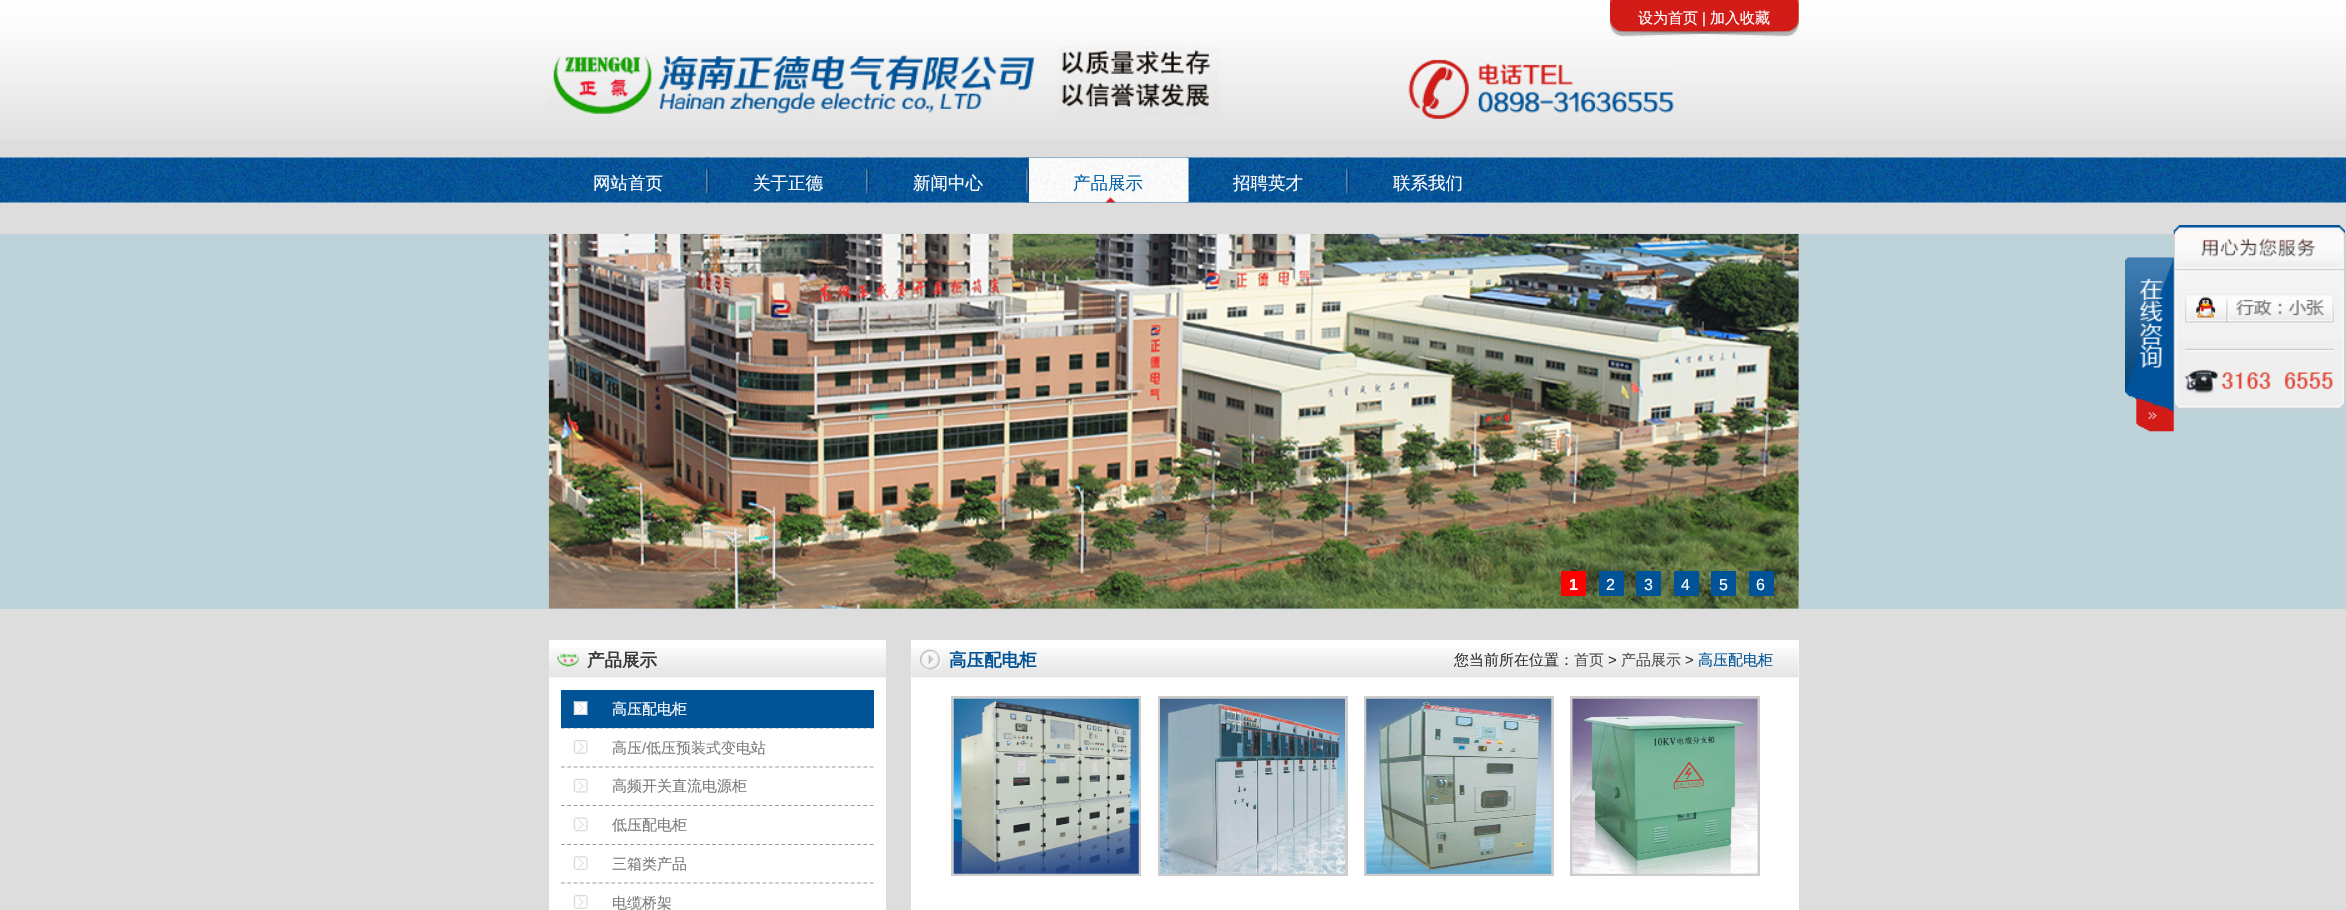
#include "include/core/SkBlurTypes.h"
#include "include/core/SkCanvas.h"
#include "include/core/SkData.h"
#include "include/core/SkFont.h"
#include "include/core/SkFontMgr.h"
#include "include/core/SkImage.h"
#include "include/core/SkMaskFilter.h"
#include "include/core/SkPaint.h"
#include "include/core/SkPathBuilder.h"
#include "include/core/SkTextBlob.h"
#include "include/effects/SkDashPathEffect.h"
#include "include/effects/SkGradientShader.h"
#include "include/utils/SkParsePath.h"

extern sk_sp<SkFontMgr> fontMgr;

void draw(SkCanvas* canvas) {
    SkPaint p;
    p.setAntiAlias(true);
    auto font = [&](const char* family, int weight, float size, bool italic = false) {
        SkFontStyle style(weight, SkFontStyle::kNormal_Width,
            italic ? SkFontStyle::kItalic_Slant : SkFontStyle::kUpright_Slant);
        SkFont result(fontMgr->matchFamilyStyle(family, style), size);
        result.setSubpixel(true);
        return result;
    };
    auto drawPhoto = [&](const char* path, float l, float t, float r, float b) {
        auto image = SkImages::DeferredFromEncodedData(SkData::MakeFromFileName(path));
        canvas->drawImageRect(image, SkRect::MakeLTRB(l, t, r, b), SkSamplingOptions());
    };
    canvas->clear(0xFFDDDDDD);
    drawPhoto("media/1.png", 0, 0, 2346, 140);
    drawPhoto("media/2.png", 1610, 0, 1799, 37);
    auto font1 = font("WenQuanYi Zen Hei", 500, 15);
    p.setColor(0xFFFFFFFF);
    canvas->drawString("设为首页", 1638, 23, font1, p);
    auto font2 = font("Liberation Sans", 400, 15);
    canvas->drawString("|", 1702, 23, font2, p);
    canvas->drawString("加入收藏", 1710, 23, font1, p);
    drawPhoto("media/3.png", 549, 53, 1036, 115);
    drawPhoto("media/4.png", 1059, 46, 1219, 116);
    drawPhoto("media/5.png", 1408, 59, 1674, 119);
    drawPhoto("media/6.png", 0, 157, 2346, 203);
    drawPhoto("media/7.png", 706, 157, 709, 203);
    auto font3 = font("WenQuanYi Zen Hei", 500, 17.5f);
    canvas->drawString("网站首页", 593, 189, font3, p);
    drawPhoto("media/8.png", 866, 157, 869, 203);
    canvas->drawString("关于正德", 753, 189, font3, p);
    drawPhoto("media/9.png", 1026, 157, 1029, 203);
    canvas->drawString("新闻中心", 913, 189, font3, p);
    drawPhoto("media/10.png", 1186, 157, 1189, 203);
    drawPhoto("media/11.png", 1028, 157, 1189, 203);
    p.setColor(0xFF0060A8);
    canvas->drawString("产品展示", 1073, 189, font3, p);
    drawPhoto("media/12.png", 1346, 157, 1349, 203);
    p.setColor(0xFFFFFFFF);
    canvas->drawString("招聘英才", 1233, 189, font3, p);
    canvas->drawString("联系我们", 1393, 189, font3, p);
    p.setColor(0xFFBED2D9);
    canvas->drawRect(SkRect::MakeLTRB(0, 234, 2346, 609), p);
    drawPhoto("media/14.png", 2173, 225, 2345, 409);
    drawPhoto("media/13.png", 2125, 257, 2174, 432);
    drawPhoto("media/15.png", 2185, 294, 2334, 323);
    drawPhoto("media/16.png", 548, 233, 1799, 609);
    drawPhoto("media/17.png", 1798, 234, 1799, 609);
    p.setColor(0xFFFF0000);
    canvas->drawRect(SkRect::MakeLTRB(1561, 571, 1586, 596), p);
    auto font4 = font("Liberation Sans", 700, 16);
    p.setColor(0xFFFFFFFF);
    canvas->drawString("1", 1569, 590, font4, p);
    p.setColor(0xFF005397);
    canvas->drawRect(SkRect::MakeLTRB(1599, 571, 1624, 596), p);
    auto font5 = font("Liberation Sans", 400, 16);
    p.setColor(0xFFFFFFFF);
    canvas->drawString("2", 1606, 590, font5, p);
    p.setColor(0xFF005397);
    canvas->drawRect(SkRect::MakeLTRB(1636, 571, 1661, 596), p);
    p.setColor(0xFFFFFFFF);
    canvas->drawString("3", 1644, 590, font5, p);
    p.setColor(0xFF005397);
    canvas->drawRect(SkRect::MakeLTRB(1674, 571, 1699, 596), p);
    p.setColor(0xFFFFFFFF);
    canvas->drawString("4", 1681, 590, font5, p);
    p.setColor(0xFF005397);
    canvas->drawRect(SkRect::MakeLTRB(1711, 571, 1736, 596), p);
    p.setColor(0xFFFFFFFF);
    canvas->drawString("5", 1719, 590, font5, p);
    p.setColor(0xFF005397);
    canvas->drawRect(SkRect::MakeLTRB(1749, 571, 1774, 596), p);
    p.setColor(0xFFFFFFFF);
    canvas->drawString("6", 1756, 590, font5, p);
    canvas->drawRect(SkRect::MakeLTRB(549, 640, 886, 910), p);
    drawPhoto("media/18.png", 549, 648, 886, 678);
    drawPhoto("media/19.png", 557, 653, 579, 667);
    auto font6 = font("WenQuanYi Zen Hei", 700, 17.5f);
    p.setColor(0xFF393939);
    canvas->drawString("产品展示", 587, 666, font6, p);
    p.setStyle(SkPaint::kStroke_Style);
    p.setStrokeWidth(1.2f);
    p.setColor(0xFF999999);
    p.setPathEffect(SkDashPathEffect::Make({{3.75f, 2.55f}}, 0));
    canvas->drawPath(SkPathBuilder().moveTo(561, 728).lineTo(874, 728).detach(), p);
    p.setPathEffect(nullptr);
    p.setStyle(SkPaint::kFill_Style);
    p.setColor(0xFF005397);
    canvas->drawRect(SkRect::MakeLTRB(561, 690, 874, 728), p);
    drawPhoto("media/20.png", 573, 701, 588, 715);
    p.setColor(0xFFFFFFFF);
    canvas->drawString("高压配电柜", 612, 714, font1, p);
    p.setStyle(SkPaint::kStroke_Style);
    p.setColor(0xFF999999);
    p.setPathEffect(SkDashPathEffect::Make({{3.75f, 2.55f}}, 0));
    canvas->drawPath(SkPathBuilder().moveTo(561, 767).lineTo(874, 767).detach(), p);
    p.setPathEffect(nullptr);
    drawPhoto("media/21.png", 573, 740, 588, 754);
    p.setStyle(SkPaint::kFill_Style);
    p.setColor(0xFF7B7B7B);
    canvas->drawString("高压", 612, 753, font1, p);
    canvas->drawString("/", 642, 753, font2, p);
    canvas->drawString("低压预装式变电站", 646, 753, font1, p);
    p.setStyle(SkPaint::kStroke_Style);
    p.setColor(0xFF999999);
    p.setPathEffect(SkDashPathEffect::Make({{3.75f, 2.55f}}, 0));
    canvas->drawPath(SkPathBuilder().moveTo(561, 805.5f).lineTo(874, 805.5f).detach(), p);
    p.setPathEffect(nullptr);
    drawPhoto("media/22.png", 573, 778, 588, 793);
    p.setStyle(SkPaint::kFill_Style);
    p.setColor(0xFF7B7B7B);
    canvas->drawString("高频开关直流电源柜", 612, 791, font1, p);
    p.setStyle(SkPaint::kStroke_Style);
    p.setColor(0xFF999999);
    p.setPathEffect(SkDashPathEffect::Make({{3.75f, 2.55f}}, 0));
    canvas->drawPath(SkPathBuilder().moveTo(561, 844.5f).lineTo(874, 844.5f).detach(), p);
    p.setPathEffect(nullptr);
    drawPhoto("media/23.png", 573, 817, 588, 832);
    p.setStyle(SkPaint::kFill_Style);
    p.setColor(0xFF7B7B7B);
    canvas->drawString("低压配电柜", 612, 830, font1, p);
    p.setStyle(SkPaint::kStroke_Style);
    p.setColor(0xFF999999);
    p.setPathEffect(SkDashPathEffect::Make({{3.75f, 2.55f}}, 0));
    canvas->drawPath(SkPathBuilder().moveTo(561, 883).lineTo(874, 883).detach(), p);
    p.setPathEffect(nullptr);
    drawPhoto("media/24.png", 573, 856, 588, 870);
    p.setStyle(SkPaint::kFill_Style);
    p.setColor(0xFF7B7B7B);
    canvas->drawString("三箱类产品", 612, 869, font1, p);
    drawPhoto("media/21.png", 573, 895, 588, 909);
    canvas->drawString("电缆桥架", 612, 908, font1, p);
    p.setColor(0xFFFFFFFF);
    canvas->drawRect(SkRect::MakeLTRB(911, 640, 1799, 910), p);
    drawPhoto("media/25.png", 911, 648, 1799, 678);
    drawPhoto("media/26.png", 920, 649, 942, 670);
    p.setColor(0xFF005397);
    canvas->drawString("高压配电柜", 949, 666, font6, p);
    p.setColor(0xFF333333);
    canvas->drawString("您当前所在位置：", 1454, 665, font1, p);
    p.setColor(0xFF514F50);
    canvas->drawString("首页", 1574, 665, font1, p);
    p.setColor(0xFF333333);
    canvas->drawString(">", 1608, 665, font2, p);
    p.setColor(0xFF514F50);
    canvas->drawString("产品展示", 1621, 665, font1, p);
    p.setColor(0xFF333333);
    canvas->drawString(">", 1685, 665, font2, p);
    p.setColor(0xFF005397);
    canvas->drawString("高压配电柜", 1698, 665, font1, p);
    p.setStyle(SkPaint::kStroke_Style);
    p.setStrokeWidth(3);
    p.setColor(0xFFCCCCCC);
    canvas->drawRect(SkRect::MakeLTRB(952.5f, 697.5f, 1139.5f, 874.5f), p);
    drawPhoto("media/27.png", 953, 698, 1139, 874);
    canvas->drawRect(SkRect::MakeLTRB(1159.5f, 697.5f, 1346.5f, 874.5f), p);
    drawPhoto("media/28.png", 1160, 698, 1345, 874);
    canvas->drawRect(SkRect::MakeLTRB(1365.5f, 697.5f, 1552.5f, 874.5f), p);
    drawPhoto("media/29.png", 1366, 698, 1552, 874);
    canvas->drawRect(SkRect::MakeLTRB(1571.5f, 697.5f, 1758.5f, 874.5f), p);
    drawPhoto("media/30.png", 1572, 698, 1758, 874);
}
